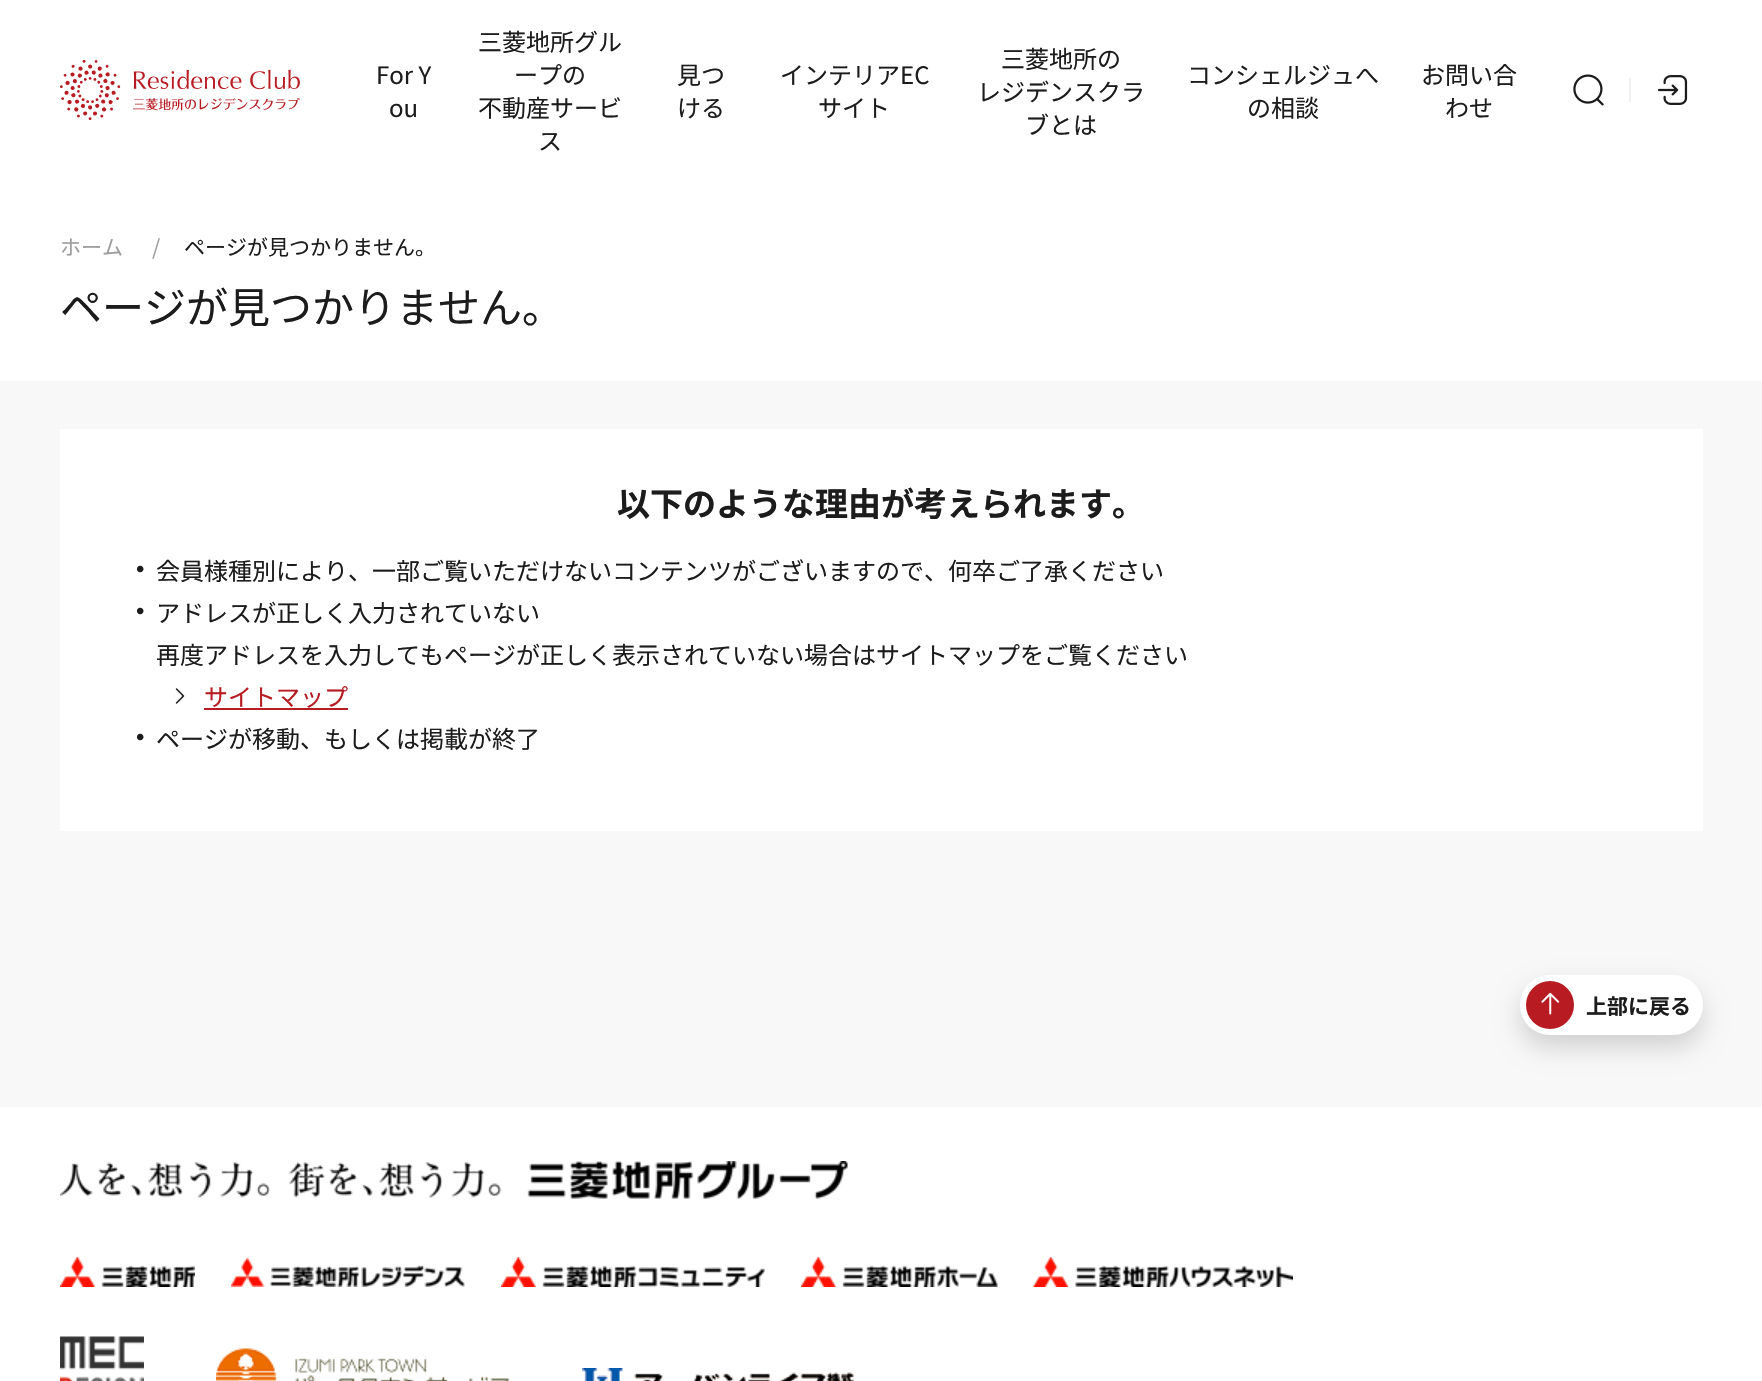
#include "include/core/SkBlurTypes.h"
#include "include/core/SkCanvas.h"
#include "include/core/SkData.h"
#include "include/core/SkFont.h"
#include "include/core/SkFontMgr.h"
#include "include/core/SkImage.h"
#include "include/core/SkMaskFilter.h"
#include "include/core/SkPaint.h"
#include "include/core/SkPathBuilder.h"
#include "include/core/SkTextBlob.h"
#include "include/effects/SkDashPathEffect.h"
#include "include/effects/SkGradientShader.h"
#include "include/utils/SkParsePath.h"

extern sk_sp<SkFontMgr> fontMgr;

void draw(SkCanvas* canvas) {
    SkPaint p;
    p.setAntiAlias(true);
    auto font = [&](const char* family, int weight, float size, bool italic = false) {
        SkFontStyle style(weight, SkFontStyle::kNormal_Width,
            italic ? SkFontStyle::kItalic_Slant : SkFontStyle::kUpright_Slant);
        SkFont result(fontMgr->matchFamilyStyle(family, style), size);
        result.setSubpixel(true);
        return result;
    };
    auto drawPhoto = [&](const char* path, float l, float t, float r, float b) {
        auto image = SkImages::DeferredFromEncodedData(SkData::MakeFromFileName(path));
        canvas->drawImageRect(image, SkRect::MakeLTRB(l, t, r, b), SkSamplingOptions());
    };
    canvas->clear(0xFFF8F8F8);
    p.setColor(0xFFFFFFFF);
    canvas->drawRect(SkRect::MakeLTRB(0, 0, 1762, 381), p);
    drawPhoto("media/1.png", 60, 60, 300, 120);
    auto font1 = font("Noto Sans JP", 400, 24);
    p.setColor(0xFF1C1C1C);
    {
        const struct { const char* s; float x, y; } items[] = {
            {"For Y", 376, 84},
            {"ou", 389, 117},
            {"三菱地所グル", 478, 51},
            {"ープの", 514, 84},
            {"不動産サービ", 478, 117},
            {"ス", 538, 150},
            {"見つ", 677, 84},
            {"ける", 677, 117},
            {"インテリアEC", 780, 84},
            {"サイト", 818, 117},
            {"三菱地所の", 1001, 68},
            {"レジデンスクラ", 977, 101},
            {"ブとは", 1025, 134},
            {"コンシェルジュへ", 1187, 84},
            {"の相談", 1247, 117},
            {"お問い合", 1421, 84},
            {"わせ", 1445, 117},
        };
        for (auto [s, x, y] : items) {
            canvas->drawString(s, x, y, font1, p);
        }
    }
    drawPhoto("media/2.png", 1573, 74, 1604, 106);
    p.setColor(0xFFF0F0F0);
    canvas->drawRect(SkRect::MakeLTRB(1629, 78, 1631, 102), p);
    drawPhoto("media/3.png", 1657, 75, 1688, 105);
    auto font2 = font("Noto Sans JP", 400, 21);
    p.setColor(0xFF9D9D9D);
    canvas->drawString("ホーム", 60, 255, font2, p);
    canvas->drawString("/", 152, 255, font2, p);
    p.setColor(0xFF1C1C1C);
    canvas->drawString("ページが見つかりません。", 184, 255, font2, p);
    auto font3 = font("Noto Sans JP", 400, 42);
    canvas->drawString("ページが見つかりません。", 60, 323, font3, p);
    p.setColor(0xFFFFFFFF);
    canvas->drawRect(SkRect::MakeLTRB(60, 429, 1703, 831), p);
    auto font4 = font("Noto Sans JP", 700, 33);
    p.setColor(0xFF1C1C1C);
    canvas->drawString("以下のような理由が考えられます。", 617, 516, font4, p);
    auto font5 = font("Liberation Sans", 400, 24);
    canvas->drawString("•", 136, 577, font5, p);
    canvas->drawString("会員様種別により、一部ご覧いただけないコンテンツがございますので、何卒ご了承ください", 156, 580, font1, p);
    canvas->drawString("•", 136, 619, font5, p);
    canvas->drawString("アドレスが正しく入力されていない", 156, 622, font1, p);
    canvas->drawString("再度アドレスを入力してもページが正しく表示されていない場合はサイトマップをご覧ください", 156, 664, font1, p);
    drawPhoto("media/4.png", 175, 688, 185, 704);
    p.setColor(0xFFB81C22);
    canvas->drawString("サイトマップ", 204, 706, font1, p);
    canvas->drawRect(SkRect::MakeLTRB(204, 708, 348, 710), p);
    p.setColor(0xFF1C1C1C);
    canvas->drawString("•", 136, 745, font5, p);
    canvas->drawString("ページが移動、もしくは掲載が終了", 156, 748, font1, p);
    p.setColor(0x29000000);
    p.setMaskFilter(SkMaskFilter::MakeBlur(kNormal_SkBlurStyle, 12));
    canvas->drawRoundRect(SkRect::MakeLTRB(1520, 987, 1703, 1047), 30, 30, p);
    p.setMaskFilter(nullptr);
    p.setColor(0xFFFFFFFF);
    canvas->drawRoundRect(SkRect::MakeLTRB(1520, 975, 1703, 1035), 30, 30, p);
    p.setColor(0xFFB81C22);
    canvas->drawCircle(1550, 1005, 24, p);
    drawPhoto("media/5.png", 1541, 992, 1560, 1015);
    auto font6 = font("Noto Sans JP", 700, 21);
    p.setColor(0xFF1C1C1C);
    canvas->drawString("上部に戻る", 1586, 1014, font6, p);
    p.setColor(0xFFFFFFFF);
    canvas->drawRect(SkRect::MakeLTRB(0, 1107, 1762, 1381), p);
    drawPhoto("media/6.png", 60, 1161, 848, 1199);
    drawPhoto("media/7.png", 60, 1257, 195, 1287);
    drawPhoto("media/8.png", 231, 1257, 465, 1287);
    drawPhoto("media/9.png", 501, 1257, 765, 1287);
    drawPhoto("media/10.png", 801, 1257, 998, 1287);
    drawPhoto("media/11.png", 1033, 1257, 1293, 1287);
    drawPhoto("media/12.png", 60, 1336, 144, 1381);
    drawPhoto("media/13.png", 216, 1348, 509, 1381);
    drawPhoto("media/14.png", 582, 1368, 854, 1381);
}
